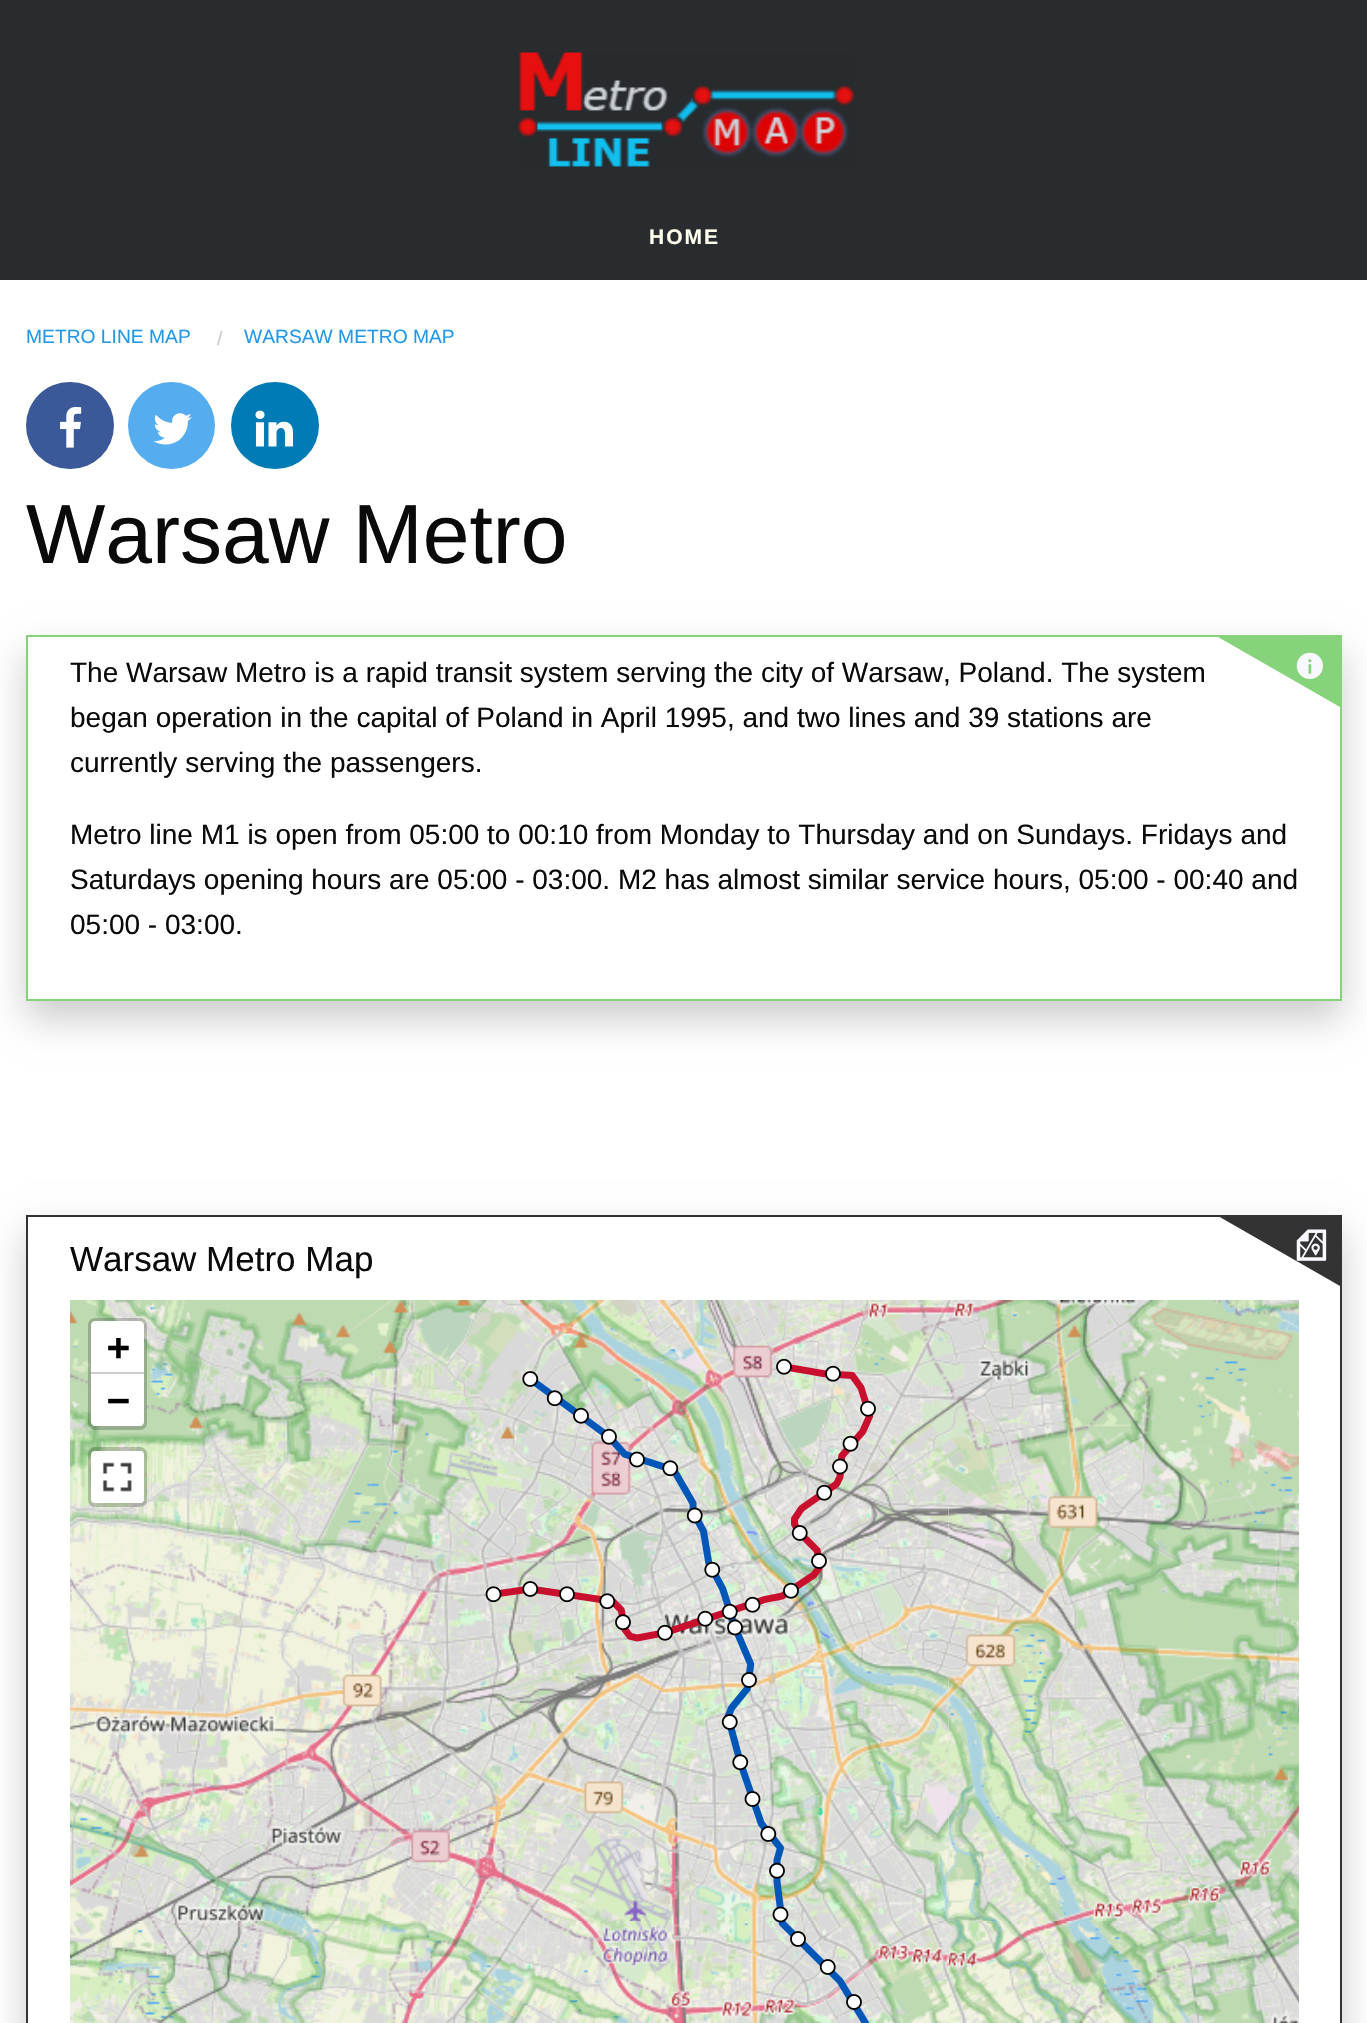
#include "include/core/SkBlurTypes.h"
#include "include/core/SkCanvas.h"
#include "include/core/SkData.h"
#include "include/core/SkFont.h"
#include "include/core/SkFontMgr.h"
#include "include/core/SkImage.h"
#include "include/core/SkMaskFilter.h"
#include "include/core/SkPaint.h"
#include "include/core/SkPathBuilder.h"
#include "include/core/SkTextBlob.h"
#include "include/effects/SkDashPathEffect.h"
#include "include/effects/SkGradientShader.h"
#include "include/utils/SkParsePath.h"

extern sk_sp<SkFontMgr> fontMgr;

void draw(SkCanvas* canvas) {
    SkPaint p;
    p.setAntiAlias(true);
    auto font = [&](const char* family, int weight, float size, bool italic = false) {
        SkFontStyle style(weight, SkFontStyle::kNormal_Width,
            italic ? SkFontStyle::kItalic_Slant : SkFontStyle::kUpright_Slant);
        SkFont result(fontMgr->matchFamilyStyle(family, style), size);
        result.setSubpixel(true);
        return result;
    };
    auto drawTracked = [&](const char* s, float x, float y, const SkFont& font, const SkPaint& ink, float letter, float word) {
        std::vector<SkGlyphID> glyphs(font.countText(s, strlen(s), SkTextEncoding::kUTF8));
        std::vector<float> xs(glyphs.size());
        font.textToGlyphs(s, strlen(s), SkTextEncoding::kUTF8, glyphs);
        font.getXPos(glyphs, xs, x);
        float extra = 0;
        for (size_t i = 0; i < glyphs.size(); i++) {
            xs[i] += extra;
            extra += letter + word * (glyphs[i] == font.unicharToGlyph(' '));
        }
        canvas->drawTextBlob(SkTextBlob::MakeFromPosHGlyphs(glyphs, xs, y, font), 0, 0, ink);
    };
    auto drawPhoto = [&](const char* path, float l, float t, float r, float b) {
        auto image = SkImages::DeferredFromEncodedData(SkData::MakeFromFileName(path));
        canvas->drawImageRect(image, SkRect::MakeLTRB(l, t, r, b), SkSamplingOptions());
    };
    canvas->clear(0xFFFFFFFF);
    p.setColor(0xFF292C2F);
    canvas->drawRect(SkRect::MakeLTRB(0, 0, 1367, 280), p);
    drawPhoto("media/1.png", 517, 52, 855, 167);
    auto font1 = font("Liberation Sans", 700, 21);
    p.setColor(0xFFFFFFEE);
    drawTracked("HOME", 649, 244, font1, p, 2, 0);
    auto font2 = font("Liberation Sans", 400, 19.25f);
    p.setColor(0xFF2199E8);
    canvas->drawString("METRO LINE MAP", 26, 343, font2, p);
    p.setColor(0xFFCACACA);
    canvas->drawString("/", 217, 345, font2, p);
    p.setColor(0xFF2199E8);
    canvas->drawString("WARSAW METRO MAP", 244, 343, font2, p);
    p.setColor(0xFF3B5998);
    canvas->drawRoundRect(SkRect::MakeLTRB(26, 382, 114, 469), 43.5f, 43.5f, p);
    drawPhoto("media/2.png", 60, 407, 82, 448);
    p.setColor(0xFF55ACEE);
    canvas->drawCircle(171.5f, 425.5f, 43.5f, p);
    drawPhoto("media/3.png", 153, 413, 192, 445);
    p.setColor(0xFF007BB5);
    canvas->drawRoundRect(SkRect::MakeLTRB(231, 382, 319, 469), 43.5f, 43.5f, p);
    drawPhoto("media/4.png", 255, 410, 293, 447);
    auto font3 = font("Liberation Sans", 400, 84);
    p.setColor(0xFF0A0A0A);
    canvas->drawString("Warsaw Metro", 26, 563, font3, p);
    p.setColor(0x33000000);
    p.setMaskFilter(SkMaskFilter::MakeBlur(kNormal_SkBlurStyle, 17.5f));
    canvas->drawRect(SkRect::MakeLTRB(26, 653, 1342, 1019), p);
    p.setMaskFilter(nullptr);
    p.setColor(0xFFFFFFFF);
    canvas->drawRect(SkRect::MakeLTRB(27, 636, 1341, 1000), p);
    p.setStyle(SkPaint::kStroke_Style);
    p.setStrokeWidth(2);
    p.setColor(0xFF87D37C);
    canvas->drawRect(SkRect::MakeLTRB(27, 636, 1341, 1000), p);
    p.setStyle(SkPaint::kFill_Style);
    canvas->drawPath(SkPathBuilder().moveTo(1340, 637).lineTo(1340, 707).lineTo(1218, 637).close().detach(), p);
    drawPhoto("media/5.png", 1296, 652, 1323, 679);
    auto font4 = font("Liberation Sans", 400, 28);
    p.setColor(0xFF0A0A0A);
    {
        const struct { const char* s; float x, y; } items[] = {
            {"The Warsaw Metro is a rapid transit system serving the city of Warsaw, Poland. The system", 70, 682},
            {"began operation in the capital of Poland in April 1995, and two lines and 39 stations are", 70, 727},
            {"currently serving the passengers.", 70, 772},
            {"Metro line M1 is open from 05:00 to 00:10 from Monday to Thursday and on Sundays. Fridays and", 70, 844},
            {"Saturdays opening hours are 05:00 - 03:00. M2 has almost similar service hours, 05:00 - 00:40 and", 70, 889},
            {"05:00 - 03:00.", 70, 934},
        };
        for (auto [s, x, y] : items) {
            canvas->drawString(s, x, y, font4, p);
        }
    }
    p.setColor(0x33000000);
    p.setMaskFilter(SkMaskFilter::MakeBlur(kNormal_SkBlurStyle, 17.5f));
    canvas->drawRect(SkRect::MakeLTRB(26, 1232, 1342, 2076), p);
    p.setMaskFilter(nullptr);
    p.setColor(0xFFFFFFFF);
    canvas->drawRect(SkRect::MakeLTRB(27, 1216, 1341, 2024), p);
    p.setStyle(SkPaint::kStroke_Style);
    p.setColor(0xFF333333);
    canvas->drawRect(SkRect::MakeLTRB(27, 1216, 1341, 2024), p);
    auto font5 = font("Liberation Sans", 400, 35);
    p.setStyle(SkPaint::kFill_Style);
    p.setColor(0xFF0A0A0A);
    canvas->drawString("Warsaw Metro Map", 70, 1271, font5, p);
    p.setColor(0xFFDDDDDD);
    canvas->drawRect(SkRect::MakeLTRB(501, 1473, 949, 1921), p);
    drawPhoto("media/9.png", 70, 1473, 501, 1921);
    drawPhoto("media/6.png", 70, 1300, 501, 1474);
    drawPhoto("media/10.png", 501, 1473, 949, 1921);
    drawPhoto("media/7.png", 501, 1300, 949, 1474);
    drawPhoto("media/11.png", 949, 1473, 1299, 1921);
    drawPhoto("media/8.png", 949, 1300, 1299, 1474);
    drawPhoto("media/12.png", 70, 1921, 501, 2023);
    drawPhoto("media/13.png", 501, 1921, 949, 2023);
    drawPhoto("media/14.png", 949, 1921, 1299, 2023);
    drawPhoto("media/15.png", 485, 1358, 876, 2023);
    p.setStyle(SkPaint::kStroke_Style);
    p.setStrokeWidth(4);
    p.setColor(0x33000000);
    canvas->drawRoundRect(SkRect::MakeLTRB(90, 1320, 145, 1428), 5, 5, p);
    p.setStyle(SkPaint::kFill_Style);
    p.setColor(0xFFFFFFFF);
    canvas->drawPath(SkPathBuilder().moveTo(95, 1321).lineTo(140, 1321).cubicTo(142, 1321, 144, 1323, 144, 1325).lineTo(144, 1374).lineTo(91, 1374).lineTo(91, 1325).cubicTo(91, 1323, 93, 1321, 95, 1321).close().detach(), p);
    p.setColor(0xFFCCCCCC);
    canvas->drawRect(SkRect::MakeLTRB(91, 1372, 144, 1374), p);
    auto font6 = font("DejaVu Sans Mono", 700, 38);
    p.setColor(0xFF000000);
    canvas->drawString("+", 107, 1360, font6, p);
    p.setColor(0xFFFFFFFF);
    canvas->drawPath(SkPathBuilder().moveTo(91, 1374).lineTo(144, 1374).lineTo(144, 1422).cubicTo(144, 1424, 142, 1426, 140, 1426).lineTo(95, 1426).cubicTo(93, 1426, 91, 1424, 91, 1422).close().detach(), p);
    p.setColor(0xFF000000);
    canvas->drawString("−", 107, 1413, font6, p);
    p.setStyle(SkPaint::kStroke_Style);
    p.setColor(0x33000000);
    canvas->drawRoundRect(SkRect::MakeLTRB(90, 1449, 145, 1505), 5, 5, p);
    p.setStyle(SkPaint::kFill_Style);
    p.setColor(0xFFFFFFFF);
    canvas->drawRoundRect(SkRect::MakeLTRB(91, 1451, 144, 1503), 4, 4, p);
    drawPhoto("media/16.png", 102, 1462, 132, 1492);
    p.setColor(0xFF333333);
    canvas->drawPath(SkPathBuilder().moveTo(1340, 1216).lineTo(1340, 1286).lineTo(1218, 1216).close().detach(), p);
    drawPhoto("media/17.png", 1296, 1229, 1327, 1261);
}
